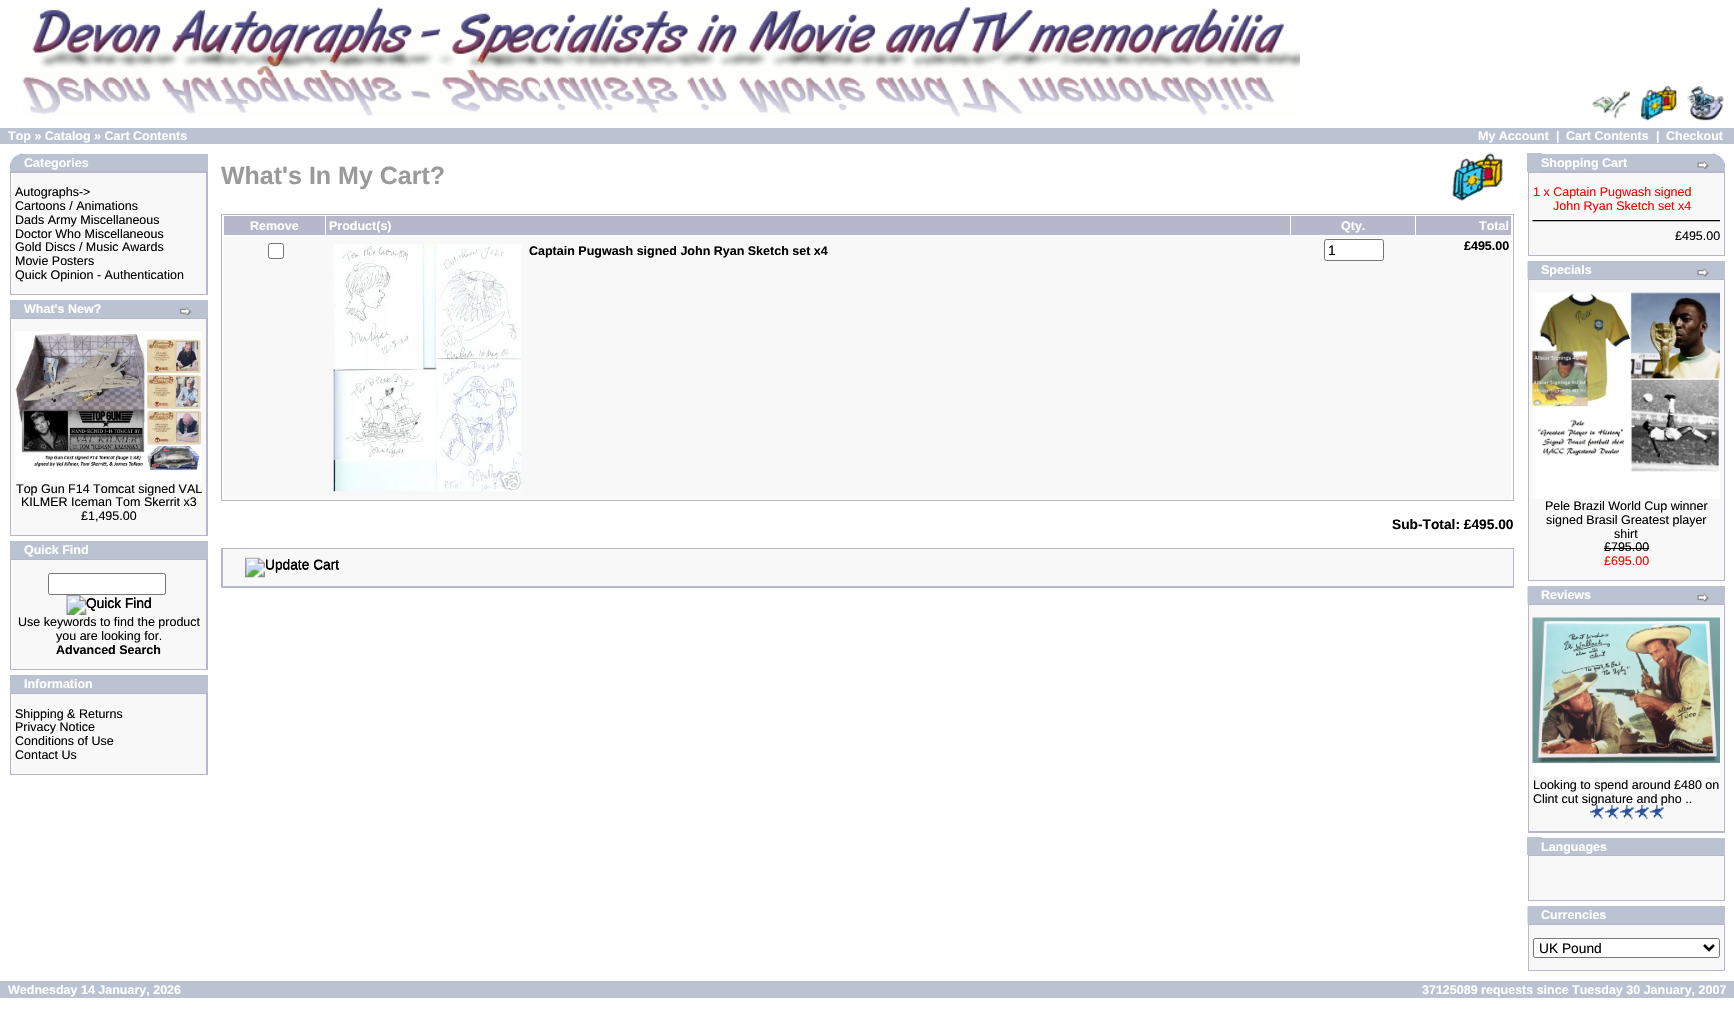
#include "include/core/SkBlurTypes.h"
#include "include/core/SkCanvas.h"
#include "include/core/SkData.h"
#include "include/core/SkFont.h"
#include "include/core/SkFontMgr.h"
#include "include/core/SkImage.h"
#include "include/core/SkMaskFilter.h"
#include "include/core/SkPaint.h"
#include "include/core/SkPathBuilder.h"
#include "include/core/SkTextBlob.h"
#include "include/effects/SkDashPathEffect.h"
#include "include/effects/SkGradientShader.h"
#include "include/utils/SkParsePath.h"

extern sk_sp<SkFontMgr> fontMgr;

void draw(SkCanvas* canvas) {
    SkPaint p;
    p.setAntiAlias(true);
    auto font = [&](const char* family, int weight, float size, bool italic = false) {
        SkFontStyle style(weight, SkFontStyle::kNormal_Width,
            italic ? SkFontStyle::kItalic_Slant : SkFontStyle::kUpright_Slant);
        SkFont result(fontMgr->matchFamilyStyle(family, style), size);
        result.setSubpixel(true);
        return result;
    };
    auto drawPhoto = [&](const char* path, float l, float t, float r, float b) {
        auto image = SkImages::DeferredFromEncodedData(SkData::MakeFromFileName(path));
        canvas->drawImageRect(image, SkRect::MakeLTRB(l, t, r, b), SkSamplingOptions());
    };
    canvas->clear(0xFFFFFFFF);
    drawPhoto("media/1.png", 22, 7, 1300, 117);
    drawPhoto("media/2.png", 1592, 91, 1630, 119);
    drawPhoto("media/3.png", 1641, 86, 1677, 121);
    drawPhoto("media/4.png", 1687, 86, 1724, 121);
    p.setColor(0xFFBBC3D3);
    canvas->drawRect(SkRect::MakeLTRB(0, 128, 1734, 144), p);
    auto font1 = font("Liberation Sans", 700, 12.5f);
    p.setColor(0xFFFFFFFF);
    {
        const struct { const char* s; float x, y; } items[] = {
            {"Top » Catalog » Cart Contents", 8, 140},
            {"My Account", 1478, 140},
            {"|", 1556, 140},
            {"Cart Contents", 1566, 140},
            {"|", 1656, 140},
            {"Checkout", 1666, 140},
        };
        for (auto [s, x, y] : items) {
            canvas->drawString(s, x, y, font1, p);
        }
    }
    p.setColor(0xFFBBC3D3);
    canvas->drawRect(SkRect::MakeLTRB(10, 154, 208, 171), p);
    drawPhoto("media/5.png", 10, 153, 24, 166);
    p.setColor(0xFFFFFFFF);
    canvas->drawString("Categories", 24, 167, font1, p);
    p.setColor(0xFFB6B7CB);
    canvas->drawRect(SkRect::MakeLTRB(10, 171, 208, 295), p);
    p.setColor(0xFFF8F8F9);
    canvas->drawRect(SkRect::MakeLTRB(11, 173, 206, 294), p);
    auto font2 = font("Liberation Sans", 400, 12.5f);
    p.setColor(0xFF000000);
    {
        const struct { const char* s; float x, y; } items[] = {
            {"Autographs->", 15, 196},
            {"Cartoons / Animations", 15, 210},
            {"Dads Army Miscellaneous", 15, 224},
            {"Doctor Who Miscellaneous", 15, 238},
            {"Gold Discs / Music Awards", 15, 251},
            {"Movie Posters", 15, 265},
            {"Quick Opinion - Authentication", 15, 279},
        };
        for (auto [s, x, y] : items) {
            canvas->drawString(s, x, y, font2, p);
        }
    }
    p.setColor(0xFFBBC3D3);
    canvas->drawRect(SkRect::MakeLTRB(10, 300, 208, 318), p);
    p.setColor(0xFFFFFFFF);
    canvas->drawString("What's New?", 24, 313, font1, p);
    drawPhoto("media/6.png", 179, 307, 192, 316);
    p.setColor(0xFFB6B7CB);
    canvas->drawRect(SkRect::MakeLTRB(10, 318, 208, 536), p);
    p.setColor(0xFFF8F8F9);
    canvas->drawRect(SkRect::MakeLTRB(11, 319, 206, 535), p);
    drawPhoto("media/7.png", 15, 331, 202, 481);
    p.setColor(0xFF000000);
    {
        const struct { const char* s; float x, y; } items[] = {
            {"Top Gun F14 Tomcat signed VAL", 16, 493},
            {"KILMER Iceman Tom Skerrit x3", 21, 506},
            {"£1,495.00", 81, 520},
        };
        for (auto [s, x, y] : items) {
            canvas->drawString(s, x, y, font2, p);
        }
    }
    p.setColor(0xFFBBC3D3);
    canvas->drawRect(SkRect::MakeLTRB(10, 541, 208, 559), p);
    p.setColor(0xFFFFFFFF);
    canvas->drawString("Quick Find", 24, 554, font1, p);
    p.setColor(0xFFB6B7CB);
    canvas->drawRect(SkRect::MakeLTRB(10, 559, 208, 670), p);
    p.setColor(0xFFF8F8F9);
    canvas->drawRect(SkRect::MakeLTRB(11, 560, 206, 669), p);
    p.setColor(0xFFFFFFFF);
    canvas->drawRoundRect(SkRect::MakeLTRB(48.5f, 573.5f, 165.5f, 594.5f), 2, 2, p);
    p.setStyle(SkPaint::kStroke_Style);
    p.setStrokeWidth(1);
    p.setColor(0xFF767676);
    canvas->drawRoundRect(SkRect::MakeLTRB(48.5f, 573.5f, 165.5f, 594.5f), 2, 2, p);
    drawPhoto("media/8.png", 66, 595, 151, 615);
    auto font3 = font("Liberation Sans", 400, 13.75f);
    p.setStyle(SkPaint::kFill_Style);
    p.setColor(0xFF000000);
    canvas->drawString("Quick Find", 86, 608, font3, p);
    canvas->drawString("Use keywords to find the product", 18, 626, font2, p);
    canvas->drawString("you are looking for.", 56, 640, font2, p);
    canvas->drawString("Advanced Search", 56, 654, font1, p);
    p.setColor(0xFFBBC3D3);
    canvas->drawRect(SkRect::MakeLTRB(10, 675, 208, 693), p);
    p.setColor(0xFFFFFFFF);
    canvas->drawString("Information", 24, 688, font1, p);
    p.setColor(0xFFB6B7CB);
    canvas->drawRect(SkRect::MakeLTRB(10, 693, 208, 775), p);
    p.setColor(0xFFF8F8F9);
    canvas->drawRect(SkRect::MakeLTRB(11, 694, 206, 774), p);
    p.setColor(0xFF000000);
    {
        const struct { const char* s; float x, y; } items[] = {
            {"Shipping & Returns", 15, 718},
            {"Privacy Notice", 15, 731},
            {"Conditions of Use", 15, 745},
            {"Contact Us", 15, 759},
        };
        for (auto [s, x, y] : items) {
            canvas->drawString(s, x, y, font2, p);
        }
    }
    auto font4 = font("Liberation Sans", 700, 25);
    p.setColor(0xFF9A9A9A);
    canvas->drawString("What's In My Cart?", 221, 184, font4, p);
    drawPhoto("media/9.png", 1452, 153, 1503, 201);
    p.setStyle(SkPaint::kStroke_Style);
    p.setColor(0xFFB6B7CB);
    canvas->drawRect(SkRect::MakeLTRB(221.5f, 214.5f, 1513.5f, 500.5f), p);
    p.setStyle(SkPaint::kFill_Style);
    canvas->drawRect(SkRect::MakeLTRB(224, 216, 325, 235), p);
    p.setColor(0xFFFFFFFF);
    canvas->drawString("Remove", 250, 230, font1, p);
    p.setColor(0xFFB6B7CB);
    canvas->drawRect(SkRect::MakeLTRB(326, 216, 1290, 235), p);
    p.setColor(0xFFFFFFFF);
    canvas->drawString("Product(s)", 329, 230, font1, p);
    p.setColor(0xFFB6B7CB);
    canvas->drawRect(SkRect::MakeLTRB(1291, 216, 1415, 235), p);
    p.setColor(0xFFFFFFFF);
    canvas->drawString("Qty.", 1341, 230, font1, p);
    p.setColor(0xFFB6B7CB);
    canvas->drawRect(SkRect::MakeLTRB(1416, 216, 1511, 235), p);
    p.setColor(0xFFFFFFFF);
    canvas->drawString("Total", 1479, 230, font1, p);
    p.setColor(0xFFF8F8F9);
    canvas->drawRect(SkRect::MakeLTRB(224, 236, 1511, 499), p);
    p.setColor(0xFFFFFFFF);
    canvas->drawRoundRect(SkRect::MakeLTRB(268.5f, 243.5f, 283.5f, 258.5f), 2, 2, p);
    p.setStyle(SkPaint::kStroke_Style);
    p.setColor(0xFF767676);
    canvas->drawRoundRect(SkRect::MakeLTRB(268.5f, 243.5f, 283.5f, 258.5f), 2, 2, p);
    drawPhoto("media/10.png", 333, 244, 522, 492);
    p.setStyle(SkPaint::kFill_Style);
    p.setColor(0xFF000000);
    canvas->drawString("Captain Pugwash signed John Ryan Sketch set x4", 529, 255, font1, p);
    p.setColor(0xFFFFFFFF);
    canvas->drawRoundRect(SkRect::MakeLTRB(1324.5f, 239.5f, 1383.5f, 260.5f), 2, 2, p);
    p.setStyle(SkPaint::kStroke_Style);
    p.setColor(0xFF767676);
    canvas->drawRoundRect(SkRect::MakeLTRB(1324.5f, 239.5f, 1383.5f, 260.5f), 2, 2, p);
    p.setStyle(SkPaint::kFill_Style);
    p.setColor(0xFF000000);
    canvas->drawString("1", 1328, 255, font3, p);
    canvas->drawString("£495.00", 1464, 250, font1, p);
    auto font5 = font("Liberation Sans", 700, 13.75f);
    canvas->drawString("Sub-Total: £495.00", 1392, 529, font5, p);
    p.setColor(0xFFB6B7CB);
    canvas->drawRect(SkRect::MakeLTRB(221, 548, 1514, 588), p);
    p.setColor(0xFFF8F8F9);
    canvas->drawRect(SkRect::MakeLTRB(223, 549, 1513, 586), p);
    drawPhoto("media/11.png", 245, 557, 339, 578);
    p.setColor(0xFF000000);
    canvas->drawString("Update Cart", 265, 569, font3, p);
    {
        const struct { float l, t, r, b; SkColor color; } items[] = {
            {1528, 171, 1725, 256, 0xFFB6B7CB},
            {1527, 153, 1542, 172, 0xFFBBC3D3},
            {1542, 154, 1725, 171, 0xFFBBC3D3},
        };
        for (auto [l, t, r, b, color] : items) {
            p.setColor(color);
            canvas->drawRect(SkRect::MakeLTRB(l, t, r, b), p);
        }
    }
    p.setColor(0xFFFFFFFF);
    canvas->drawString("Shopping Cart", 1541, 167, font1, p);
    drawPhoto("media/12.png", 1697, 161, 1709, 169);
    drawPhoto("media/13.png", 1711, 153, 1725, 166);
    p.setColor(0xFFF8F8F9);
    canvas->drawRect(SkRect::MakeLTRB(1529, 173, 1724, 255), p);
    p.setColor(0xFFFF0000);
    canvas->drawString("1 x Captain Pugwash signed", 1533, 196, font2, p);
    canvas->drawString("John Ryan Sketch set x4", 1553, 210, font2, p);
    drawPhoto("media/14.png", 1532, 220, 1720, 222);
    p.setColor(0xFF000000);
    canvas->drawString("£495.00", 1675, 240, font2, p);
    p.setColor(0xFFBBC3D3);
    canvas->drawRect(SkRect::MakeLTRB(1528, 261, 1725, 279), p);
    drawPhoto("media/15.png", 1527, 261, 1528, 279);
    p.setColor(0xFFFFFFFF);
    canvas->drawString("Specials", 1541, 274, font1, p);
    drawPhoto("media/16.png", 1697, 268, 1709, 277);
    p.setColor(0xFFB6B7CB);
    canvas->drawRect(SkRect::MakeLTRB(1528, 279, 1725, 581), p);
    p.setColor(0xFFF8F8F9);
    canvas->drawRect(SkRect::MakeLTRB(1529, 280, 1724, 580), p);
    drawPhoto("media/17.png", 1532, 292, 1720, 499);
    p.setColor(0xFF000000);
    {
        const struct { const char* s; float x, y; } items[] = {
            {"Pele Brazil World Cup winner", 1545, 510},
            {"signed Brasil Greatest player", 1546, 524},
            {"shirt", 1614, 538},
            {"£795.00", 1604, 551},
        };
        for (auto [s, x, y] : items) {
            canvas->drawString(s, x, y, font2, p);
        }
    }
    canvas->drawRect(SkRect::MakeLTRB(1604, 548, 1649, 549), p);
    p.setColor(0xFFFF0000);
    canvas->drawString("£695.00", 1604, 565, font2, p);
    p.setColor(0xFFBBC3D3);
    canvas->drawRect(SkRect::MakeLTRB(1528, 586, 1725, 604), p);
    drawPhoto("media/15.png", 1527, 586, 1528, 604);
    p.setColor(0xFFFFFFFF);
    canvas->drawString("Reviews", 1541, 599, font1, p);
    drawPhoto("media/16.png", 1697, 593, 1709, 602);
    p.setColor(0xFFB6B7CB);
    canvas->drawRect(SkRect::MakeLTRB(1528, 604, 1725, 833), p);
    p.setColor(0xFFF8F8F9);
    canvas->drawRect(SkRect::MakeLTRB(1529, 605, 1724, 831), p);
    drawPhoto("media/18.png", 1532, 617, 1720, 777);
    p.setColor(0xFF000000);
    canvas->drawString("Looking to spend around £480 on", 1533, 789, font2, p);
    canvas->drawString("Clint cut signature and pho ..", 1533, 803, font2, p);
    drawPhoto("media/19.png", 1590, 805, 1664, 819);
    p.setColor(0xFFBBC3D3);
    canvas->drawRect(SkRect::MakeLTRB(1527, 837, 1542, 855), p);
    canvas->drawRect(SkRect::MakeLTRB(1542, 838, 1725, 855), p);
    p.setColor(0xFFFFFFFF);
    canvas->drawString("Languages", 1541, 851, font1, p);
    {
        const struct { float l, t, r, b; SkColor color; } items[] = {
            {1528, 855, 1725, 901, 0xFFB6B7CB},
            {1529, 856, 1724, 900, 0xFFF8F8F9},
            {1528, 906, 1725, 924, 0xFFBBC3D3},
        };
        for (auto [l, t, r, b, color] : items) {
            p.setColor(color);
            canvas->drawRect(SkRect::MakeLTRB(l, t, r, b), p);
        }
    }
    drawPhoto("media/15.png", 1527, 906, 1528, 924);
    p.setColor(0xFFFFFFFF);
    canvas->drawString("Currencies", 1541, 919, font1, p);
    p.setColor(0xFFB6B7CB);
    canvas->drawRect(SkRect::MakeLTRB(1528, 924, 1725, 971), p);
    p.setColor(0xFFF8F8F9);
    canvas->drawRect(SkRect::MakeLTRB(1529, 925, 1724, 970), p);
    p.setColor(0xFFFFFFFF);
    canvas->drawRoundRect(SkRect::MakeLTRB(1533.5f, 938.5f, 1719.5f, 957.5f), 2, 2, p);
    p.setStyle(SkPaint::kStroke_Style);
    p.setColor(0xFF767676);
    canvas->drawRoundRect(SkRect::MakeLTRB(1533.5f, 938.5f, 1719.5f, 957.5f), 2, 2, p);
    p.setStrokeWidth(2.5f);
    p.setColor(0xFF000000);
    canvas->drawPath(SkPathBuilder().moveTo(1704, 945).lineTo(1709, 950).lineTo(1714, 945).detach(), p);
    p.setStyle(SkPaint::kFill_Style);
    canvas->drawString("UK Pound", 1539, 953, font3, p);
    p.setColor(0xFFBBC3D3);
    canvas->drawRect(SkRect::MakeLTRB(0, 981, 1734, 998), p);
    p.setColor(0xFFFFFFFF);
    canvas->drawString("Wednesday 14 January, 2026", 8, 994, font1, p);
    canvas->drawString("37125089 requests since Tuesday 30 January, 2007", 1422, 994, font1, p);
}
